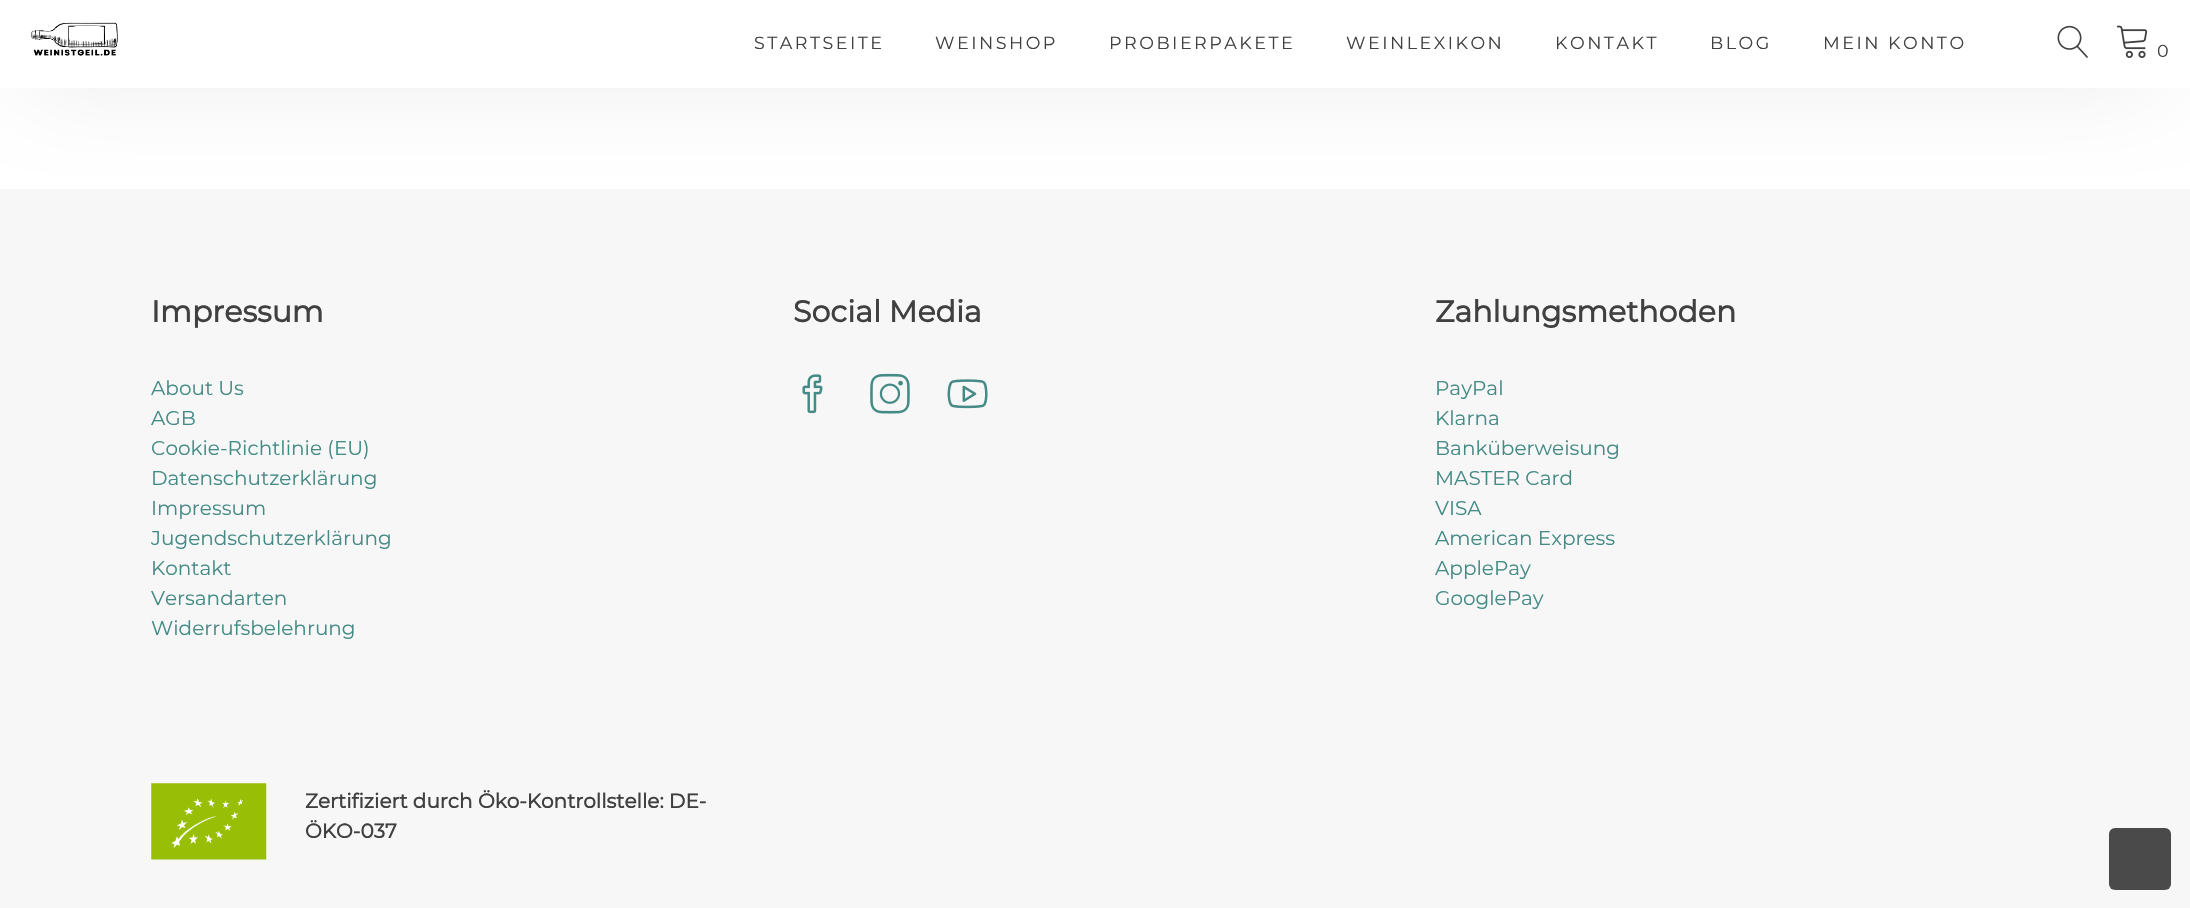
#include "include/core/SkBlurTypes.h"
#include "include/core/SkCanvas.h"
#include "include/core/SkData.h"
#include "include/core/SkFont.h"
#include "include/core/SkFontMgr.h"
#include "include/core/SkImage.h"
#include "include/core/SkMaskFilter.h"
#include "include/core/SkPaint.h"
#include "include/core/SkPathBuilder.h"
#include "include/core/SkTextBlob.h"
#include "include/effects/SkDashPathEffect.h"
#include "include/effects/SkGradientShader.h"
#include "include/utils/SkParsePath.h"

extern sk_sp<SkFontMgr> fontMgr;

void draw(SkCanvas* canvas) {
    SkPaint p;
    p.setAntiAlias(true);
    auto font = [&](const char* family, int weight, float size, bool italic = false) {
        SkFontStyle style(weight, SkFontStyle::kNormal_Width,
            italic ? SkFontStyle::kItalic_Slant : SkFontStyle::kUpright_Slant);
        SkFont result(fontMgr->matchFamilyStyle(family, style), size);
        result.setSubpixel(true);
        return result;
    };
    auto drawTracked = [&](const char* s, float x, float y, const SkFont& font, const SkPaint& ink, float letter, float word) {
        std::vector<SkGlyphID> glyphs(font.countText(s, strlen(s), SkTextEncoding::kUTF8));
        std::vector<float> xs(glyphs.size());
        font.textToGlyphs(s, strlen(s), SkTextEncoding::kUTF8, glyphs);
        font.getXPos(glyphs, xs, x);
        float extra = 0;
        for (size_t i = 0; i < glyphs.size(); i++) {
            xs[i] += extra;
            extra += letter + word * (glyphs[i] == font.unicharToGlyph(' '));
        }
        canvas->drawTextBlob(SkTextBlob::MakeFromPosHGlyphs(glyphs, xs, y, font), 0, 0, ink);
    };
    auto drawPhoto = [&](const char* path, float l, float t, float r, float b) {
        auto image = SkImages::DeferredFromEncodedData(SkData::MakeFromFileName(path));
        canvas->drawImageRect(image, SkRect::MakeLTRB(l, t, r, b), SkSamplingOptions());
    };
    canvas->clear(0xFFFFFFFF);
    p.setColor(0xFFF7F7F7);
    canvas->drawRect(SkRect::MakeLTRB(0, 189, 2190, 908), p);
    p.setColor(0x4A000000);
    p.setMaskFilter(SkMaskFilter::MakeBlur(kNormal_SkBlurStyle, 50.5f));
    canvas->drawRect(SkRect::MakeLTRB(31, 36, 2154, 56), p);
    p.setMaskFilter(nullptr);
    p.setColor(0xFFFFFFFF);
    canvas->drawRect(SkRect::MakeLTRB(0, 0, 2190, 88), p);
    drawPhoto("media/1.png", 31, 22, 118, 56);
    auto font1 = font("Montserrat", 100, 17.5f);
    p.setColor(0xFF404040);
    {
        const struct { const char* s; float x, y; } items[] = {
            {"STARTSEITE", 754, 49},
            {"WEINSHOP", 935, 49},
            {"PROBIERPAKETE", 1109, 49},
            {"WEINLEXIKON", 1346, 49},
            {"KONTAKT", 1555, 49},
            {"BLOG", 1710, 49},
            {"MEIN KONTO", 1823, 49},
        };
        for (auto [s, x, y] : items) {
            drawTracked(s, x, y, font1, p, 2.5f, 0);
        }
    }
    drawPhoto("media/2.png", 2057, 25, 2088, 58);
    drawPhoto("media/3.png", 2116, 25, 2148, 58);
    canvas->drawString("0", 2157, 57, font1, p);
    auto font2 = font("Montserrat", 700, 30);
    canvas->drawString("Impressum", 151, 322, font2, p);
    auto font3 = font("Montserrat", 100, 20);
    p.setColor(0xFF448A85);
    {
        const struct { const char* s; float x, y; } items[] = {
            {"About Us", 151, 395},
            {"AGB", 151, 425},
            {"Cookie-Richtlinie (EU)", 151, 455},
            {"Datenschutzerklärung", 151, 485},
            {"Impressum", 151, 515},
            {"Jugendschutzerklärung", 151, 545},
            {"Kontakt", 151, 575},
            {"Versandarten", 151, 605},
            {"Widerrufsbelehrung", 151, 635},
        };
        for (auto [s, x, y] : items) {
            canvas->drawString(s, x, y, font3, p);
        }
    }
    p.setColor(0xFF404040);
    canvas->drawString("Social Media", 793, 322, font2, p);
    drawPhoto("media/4.png", 802, 374, 823, 414);
    drawPhoto("media/5.png", 870, 373, 910, 414);
    drawPhoto("media/6.png", 947, 379, 988, 409);
    canvas->drawString("Zahlungsmethoden", 1435, 322, font2, p);
    p.setColor(0xFF448A85);
    {
        const struct { const char* s; float x, y; } items[] = {
            {"PayPal", 1435, 395},
            {"Klarna", 1435, 425},
            {"Banküberweisung", 1435, 455},
            {"MASTER Card", 1435, 485},
            {"VISA", 1435, 515},
            {"American Express", 1435, 545},
            {"ApplePay", 1435, 575},
            {"GooglePay", 1435, 605},
        };
        for (auto [s, x, y] : items) {
            canvas->drawString(s, x, y, font3, p);
        }
    }
    drawPhoto("media/7.png", 151, 783, 267, 860);
    auto font4 = font("Montserrat", 700, 20);
    p.setColor(0xFF404040);
    canvas->drawString("Zertifiziert durch Öko-Kontrollstelle: DE-", 305, 808, font4, p);
    canvas->drawString("ÖKO-037", 305, 838, font4, p);
    p.setColor(0xFF4A4A4A);
    canvas->drawRoundRect(SkRect::MakeLTRB(2109, 828, 2171, 890), 6, 6, p);
}
